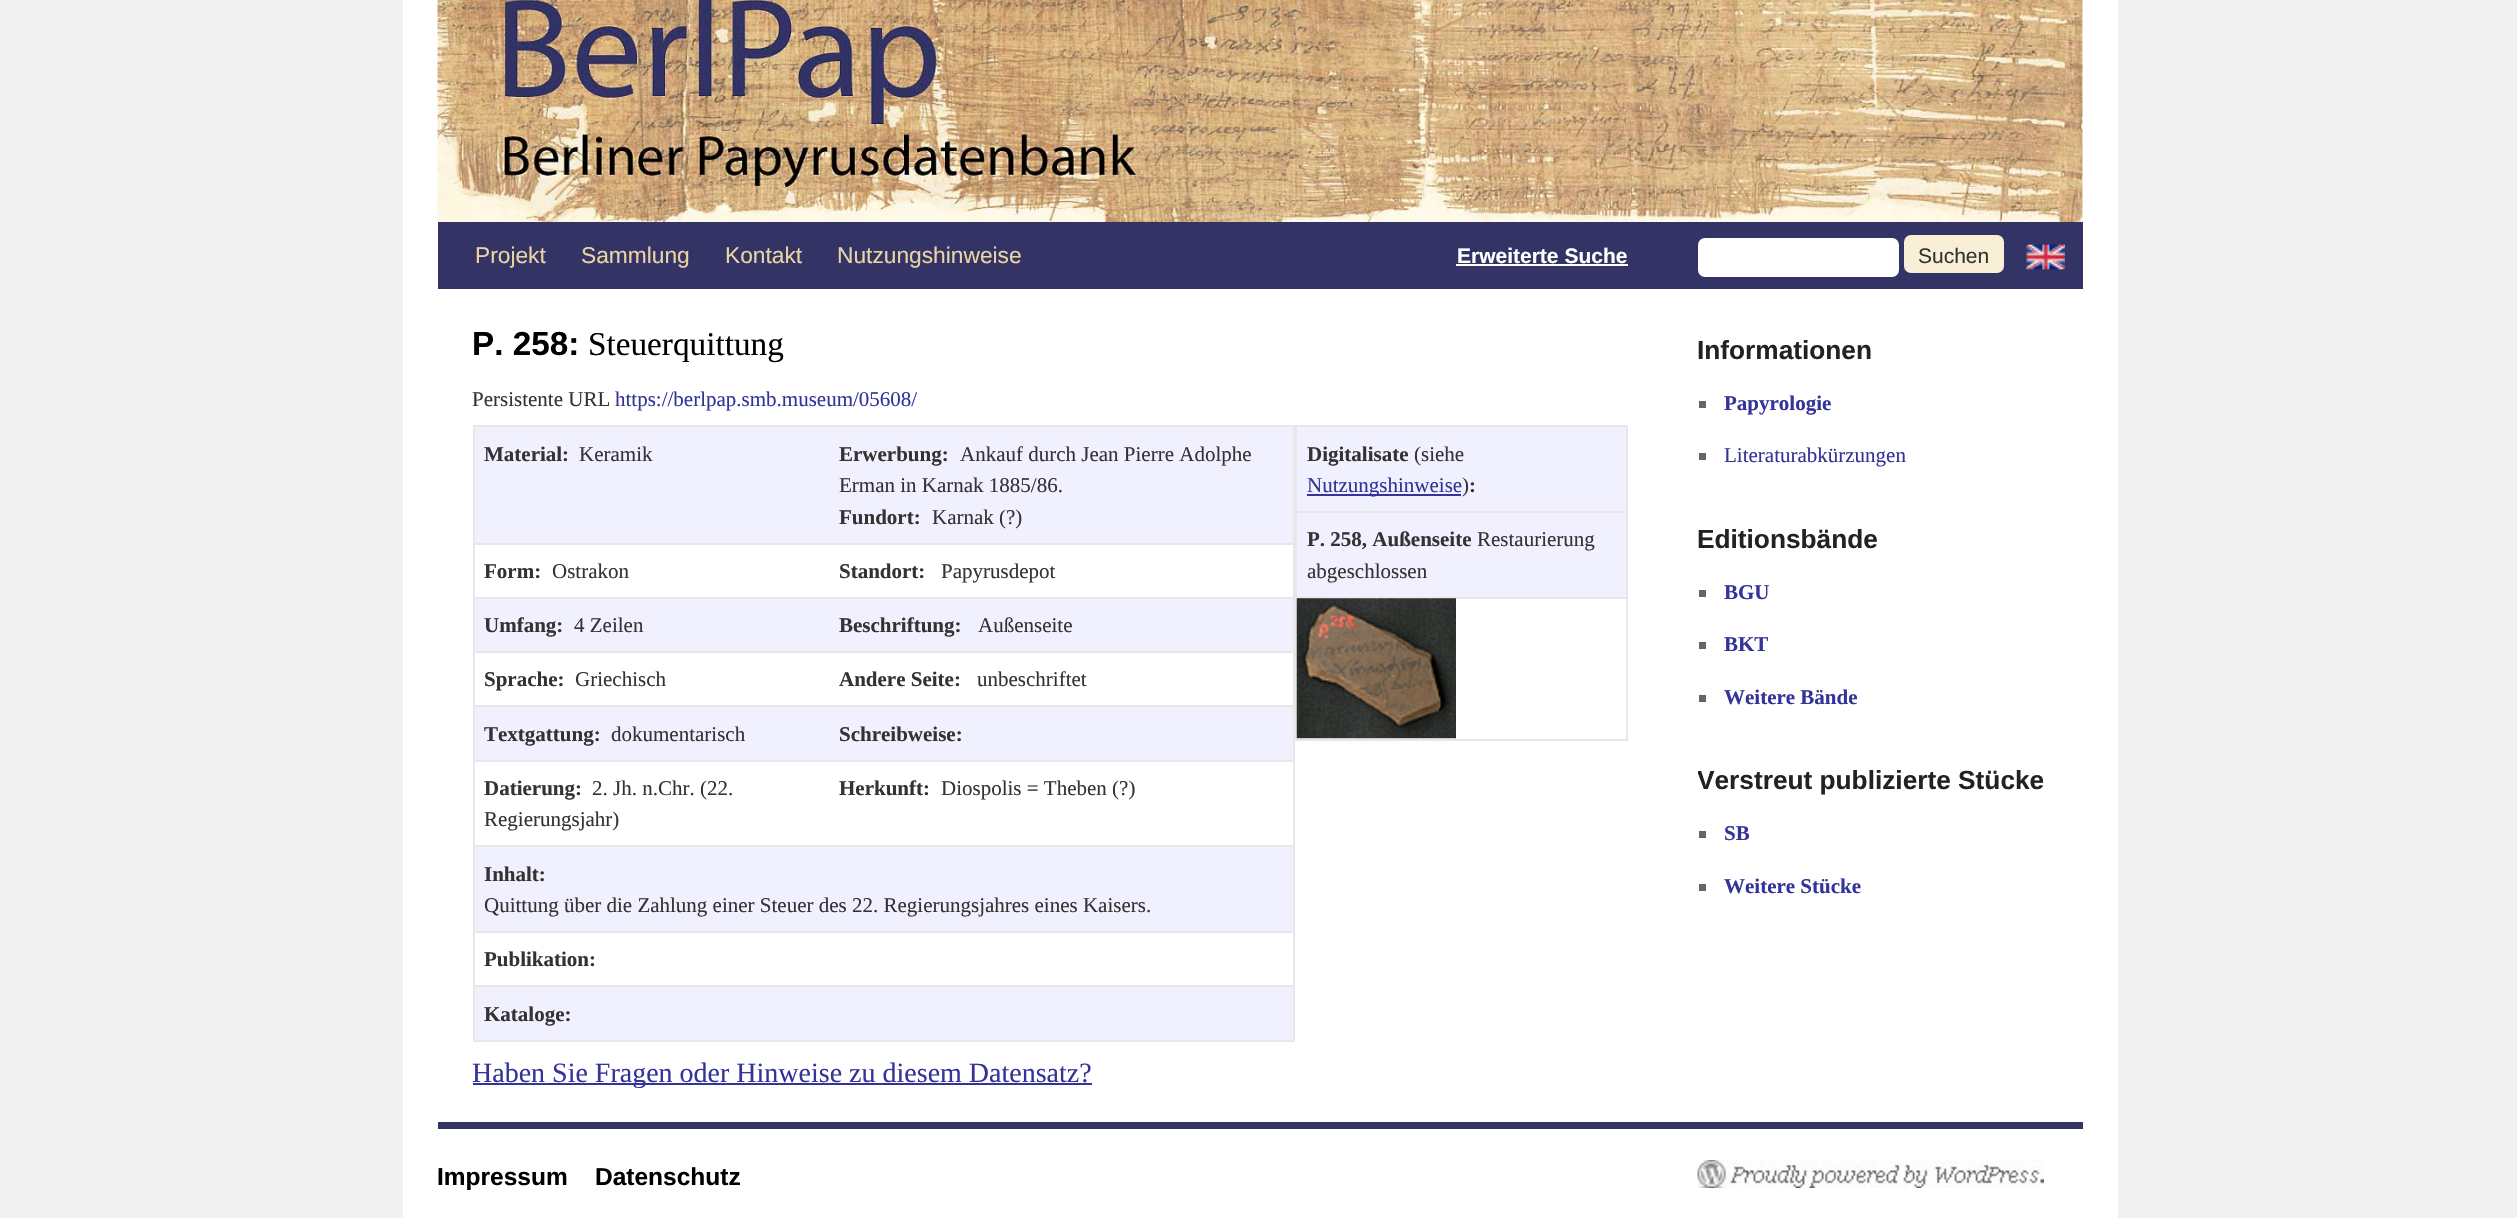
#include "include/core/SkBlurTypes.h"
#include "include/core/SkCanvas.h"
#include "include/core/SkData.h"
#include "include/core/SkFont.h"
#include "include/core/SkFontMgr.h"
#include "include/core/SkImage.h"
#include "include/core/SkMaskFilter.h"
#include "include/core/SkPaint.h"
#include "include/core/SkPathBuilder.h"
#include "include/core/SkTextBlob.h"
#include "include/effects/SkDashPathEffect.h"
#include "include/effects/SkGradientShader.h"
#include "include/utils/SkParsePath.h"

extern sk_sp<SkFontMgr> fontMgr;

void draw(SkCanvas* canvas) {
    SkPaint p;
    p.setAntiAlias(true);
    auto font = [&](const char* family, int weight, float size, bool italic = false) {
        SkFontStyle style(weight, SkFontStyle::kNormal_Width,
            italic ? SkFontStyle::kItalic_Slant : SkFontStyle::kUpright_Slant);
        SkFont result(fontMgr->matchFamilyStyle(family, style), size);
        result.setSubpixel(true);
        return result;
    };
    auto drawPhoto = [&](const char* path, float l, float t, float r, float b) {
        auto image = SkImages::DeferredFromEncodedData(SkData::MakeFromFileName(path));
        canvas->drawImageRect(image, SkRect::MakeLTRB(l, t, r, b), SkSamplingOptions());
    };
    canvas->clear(0xFFF1F1F1);
    p.setColor(0xFFFFFFFF);
    canvas->drawRect(SkRect::MakeLTRB(403, 0, 2118, 1218), p);
    drawPhoto("media/1.png", 437, 0, 1423, 222);
    drawPhoto("media/2.png", 1422, 0, 2083, 222);
    p.setColor(0xFF333366);
    canvas->drawRect(SkRect::MakeLTRB(438, 222, 2083, 289), p);
    auto font1 = font("Liberation Sans", 400, 22.75f);
    p.setColor(0xFFE9D3A3);
    {
        const struct { const char* s; float x, y; } items[] = {
            {"Projekt", 475, 263},
            {"Sammlung", 581, 263},
            {"Kontakt", 725, 263},
            {"Nutzungshinweise", 837, 263},
        };
        for (auto [s, x, y] : items) {
            canvas->drawString(s, x, y, font1, p);
        }
    }
    auto font2 = font("Liberation Sans", 700, 21);
    p.setColor(0xFFFFFFFF);
    canvas->drawString("Erweiterte Suche", 1457, 263, font2, p);
    canvas->drawRect(SkRect::MakeLTRB(1456, 264, 1628, 266), p);
    canvas->drawRoundRect(SkRect::MakeLTRB(1698, 238, 1899, 277), 7, 7, p);
    p.setColor(0xFFF9EFD6);
    canvas->drawRoundRect(SkRect::MakeLTRB(1906, 237, 2002, 271), 5, 5, p);
    p.setStyle(SkPaint::kStroke_Style);
    p.setStrokeWidth(4);
    canvas->drawRoundRect(SkRect::MakeLTRB(1906, 237, 2002, 271), 5, 5, p);
    auto font3 = font("Liberation Sans", 400, 21);
    p.setStyle(SkPaint::kFill_Style);
    p.setColor(0xFF333333);
    canvas->drawString("Suchen", 1918, 263, font3, p);
    drawPhoto("media/3.png", 2026, 244, 2065, 270);
    auto font4 = font("Liberation Sans", 700, 33.25f);
    p.setColor(0xFF000000);
    canvas->drawString("P. 258:", 472, 355, font4, p);
    auto font5 = font("Liberation Serif", 400, 33.25f);
    canvas->drawString("Steuerquittung", 588, 355, font5, p);
    auto font6 = font("Liberation Serif", 400, 21);
    p.setColor(0xFF333333);
    canvas->drawString("Persistente URL", 472, 406, font6, p);
    p.setColor(0xFF333399);
    canvas->drawString("https://berlpap.smb.museum/05608/", 615, 406, font6, p);
    {
        const struct { float l, t, r, b; SkColor color; } items[] = {
            {473, 425, 1628, 427, 0xFFE7E7E7},
            {1293, 425, 1295, 1041, 0xFFE7E7E7},
            {473, 1040, 1295, 1042, 0xFFE7E7E7},
            {473, 425, 475, 1041, 0xFFE7E7E7},
            {475, 427, 1293, 543, 0xFFF0F0FF},
        };
        for (auto [l, t, r, b, color] : items) {
            p.setColor(color);
            canvas->drawRect(SkRect::MakeLTRB(l, t, r, b), p);
        }
    }
    auto font7 = font("Liberation Serif", 700, 21);
    p.setColor(0xFF333333);
    canvas->drawString("Material:", 484, 461, font7, p);
    canvas->drawString("Keramik", 579, 461, font6, p);
    canvas->drawString("Erwerbung:", 839, 461, font7, p);
    canvas->drawString("Ankauf durch Jean Pierre Adolphe", 960, 461, font6, p);
    canvas->drawString("Erman in Karnak 1885/86.", 839, 492, font6, p);
    canvas->drawString("Fundort:", 839, 524, font7, p);
    canvas->drawString("Karnak (?)", 932, 524, font6, p);
    canvas->drawString("Form:", 484, 578, font7, p);
    canvas->drawString("Ostrakon", 552, 578, font6, p);
    p.setColor(0xFFE7E7E7);
    canvas->drawRect(SkRect::MakeLTRB(473, 543, 1295, 545), p);
    p.setColor(0xFF333333);
    canvas->drawString("Standort:", 839, 578, font7, p);
    canvas->drawString("Papyrusdepot", 941, 578, font6, p);
    p.setColor(0xFFF0F0FF);
    canvas->drawRect(SkRect::MakeLTRB(475, 599, 1293, 651), p);
    p.setColor(0xFF333333);
    canvas->drawString("Umfang:", 484, 632, font7, p);
    canvas->drawString("4 Zeilen", 574, 632, font6, p);
    p.setColor(0xFFE7E7E7);
    canvas->drawRect(SkRect::MakeLTRB(473, 597, 1295, 599), p);
    p.setColor(0xFF333333);
    canvas->drawString("Beschriftung:", 839, 632, font7, p);
    canvas->drawString("Außenseite", 978, 632, font6, p);
    canvas->drawString("Sprache:", 484, 686, font7, p);
    canvas->drawString("Griechisch", 575, 686, font6, p);
    p.setColor(0xFFE7E7E7);
    canvas->drawRect(SkRect::MakeLTRB(473, 651, 1295, 653), p);
    p.setColor(0xFF333333);
    canvas->drawString("Andere Seite:", 839, 686, font7, p);
    canvas->drawString("unbeschriftet", 977, 686, font6, p);
    p.setColor(0xFFF0F0FF);
    canvas->drawRect(SkRect::MakeLTRB(475, 707, 1293, 760), p);
    p.setColor(0xFF333333);
    canvas->drawString("Textgattung:", 484, 741, font7, p);
    canvas->drawString("dokumentarisch", 611, 741, font6, p);
    p.setColor(0xFFE7E7E7);
    canvas->drawRect(SkRect::MakeLTRB(473, 705, 1295, 707), p);
    p.setColor(0xFF333333);
    canvas->drawString("Schreibweise:", 839, 741, font7, p);
    canvas->drawString("Datierung:", 484, 795, font7, p);
    canvas->drawString("2. Jh. n.Chr. (22.", 592, 795, font6, p);
    canvas->drawString("Regierungsjahr)", 484, 826, font6, p);
    p.setColor(0xFFE7E7E7);
    canvas->drawRect(SkRect::MakeLTRB(473, 760, 1295, 762), p);
    p.setColor(0xFF333333);
    canvas->drawString("Herkunft:", 839, 795, font7, p);
    canvas->drawString("Diospolis = Theben (?)", 941, 795, font6, p);
    p.setColor(0xFFF0F0FF);
    canvas->drawRect(SkRect::MakeLTRB(475, 847, 1293, 931), p);
    p.setColor(0xFFE7E7E7);
    canvas->drawRect(SkRect::MakeLTRB(473, 845, 1295, 847), p);
    p.setColor(0xFF333333);
    canvas->drawString("Inhalt:", 484, 881, font7, p);
    canvas->drawString("Quittung über die Zahlung einer Steuer des 22. Regierungsjahres eines Kaisers.", 484, 912, font6, p);
    p.setColor(0xFFE7E7E7);
    canvas->drawRect(SkRect::MakeLTRB(473, 931, 1295, 933), p);
    p.setColor(0xFF333333);
    canvas->drawString("Publikation:", 484, 966, font7, p);
    p.setColor(0xFFF0F0FF);
    canvas->drawRect(SkRect::MakeLTRB(475, 987, 1293, 1040), p);
    p.setColor(0xFFE7E7E7);
    canvas->drawRect(SkRect::MakeLTRB(473, 985, 1295, 987), p);
    p.setColor(0xFF333333);
    canvas->drawString("Kataloge:", 484, 1021, font7, p);
    {
        const struct { float l, t, r, b; SkColor color; } items[] = {
            {1626, 425, 1628, 740, 0xFFE7E7E7},
            {1295, 739, 1628, 741, 0xFFE7E7E7},
            {1295, 425, 1297, 740, 0xFFE7E7E7},
            {1297, 427, 1626, 511, 0xFFF0F0FF},
        };
        for (auto [l, t, r, b, color] : items) {
            p.setColor(color);
            canvas->drawRect(SkRect::MakeLTRB(l, t, r, b), p);
        }
    }
    p.setColor(0xFF333333);
    canvas->drawString("Digitalisate", 1307, 461, font7, p);
    canvas->drawString("(siehe", 1414, 461, font6, p);
    p.setColor(0xFF333399);
    canvas->drawRect(SkRect::MakeLTRB(1307, 494, 1461, 496), p);
    canvas->drawString("Nutzungshinweise", 1307, 492, font6, p);
    p.setColor(0xFF333333);
    canvas->drawString(")", 1462, 492, font6, p);
    canvas->drawString(":", 1469, 492, font7, p);
    p.setColor(0xFFF0F0FF);
    canvas->drawRect(SkRect::MakeLTRB(1297, 513, 1626, 597), p);
    p.setColor(0xFFE7E7E7);
    canvas->drawRect(SkRect::MakeLTRB(1295, 511, 1628, 513), p);
    p.setColor(0xFF333333);
    canvas->drawString("P. 258, Außenseite", 1307, 546, font7, p);
    canvas->drawString("Restaurierung", 1477, 546, font6, p);
    canvas->drawString("abgeschlossen", 1307, 578, font6, p);
    p.setColor(0xFFE7E7E7);
    canvas->drawRect(SkRect::MakeLTRB(1295, 597, 1628, 599), p);
    drawPhoto("media/4.png", 1296, 598, 1456, 739);
    p.setColor(0xFF333399);
    canvas->drawRect(SkRect::MakeLTRB(473, 1083, 1092, 1085), p);
    auto font8 = font("Liberation Serif", 400, 28);
    canvas->drawString("Haben Sie Fragen oder Hinweise zu diesem Datensatz?", 472, 1082, font8, p);
    auto font9 = font("Liberation Sans", 700, 26.25f);
    p.setColor(0xFF222222);
    canvas->drawString("Informationen", 1697, 359, font9, p);
    p.setColor(0xFF666666);
    canvas->drawRect(SkRect::MakeLTRB(1699, 401, 1706, 408), p);
    p.setColor(0xFF333399);
    canvas->drawString("Papyrologie", 1724, 410, font7, p);
    p.setColor(0xFF666666);
    canvas->drawRect(SkRect::MakeLTRB(1699, 453, 1706, 460), p);
    p.setColor(0xFF333399);
    canvas->drawString("Literaturabkürzungen", 1724, 462, font6, p);
    p.setColor(0xFF222222);
    canvas->drawString("Editionsbände", 1697, 548, font9, p);
    p.setColor(0xFF666666);
    canvas->drawRect(SkRect::MakeLTRB(1699, 590, 1706, 597), p);
    p.setColor(0xFF333399);
    canvas->drawString("BGU", 1724, 599, font7, p);
    p.setColor(0xFF666666);
    canvas->drawRect(SkRect::MakeLTRB(1699, 642, 1706, 649), p);
    p.setColor(0xFF333399);
    canvas->drawString("BKT", 1724, 651, font7, p);
    p.setColor(0xFF666666);
    canvas->drawRect(SkRect::MakeLTRB(1699, 695, 1706, 702), p);
    p.setColor(0xFF333399);
    canvas->drawString("Weitere Bände", 1724, 704, font7, p);
    canvas->save();
    canvas->clipRect(SkRect::MakeLTRB(1698, 324, 2083, 943));
    p.setColor(0xFF222222);
    canvas->drawString("Verstreut publizierte Stücke", 1697, 789, font9, p);
    canvas->restore();
    p.setColor(0xFF666666);
    canvas->drawRect(SkRect::MakeLTRB(1699, 831, 1706, 838), p);
    p.setColor(0xFF333399);
    canvas->drawString("SB", 1724, 840, font7, p);
    p.setColor(0xFF666666);
    canvas->drawRect(SkRect::MakeLTRB(1699, 884, 1706, 891), p);
    p.setColor(0xFF333399);
    canvas->drawString("Weitere Stücke", 1724, 893, font7, p);
    p.setColor(0xFF333366);
    canvas->drawRect(SkRect::MakeLTRB(438, 1122, 2083, 1129), p);
    auto font10 = font("Liberation Sans", 700, 24.5f);
    p.setColor(0xFF000000);
    canvas->drawString("Impressum", 437, 1185, font10, p);
    canvas->drawString("Datenschutz", 595, 1185, font10, p);
    drawPhoto("media/5.png", 1697, 1160, 2044, 1188);
}
